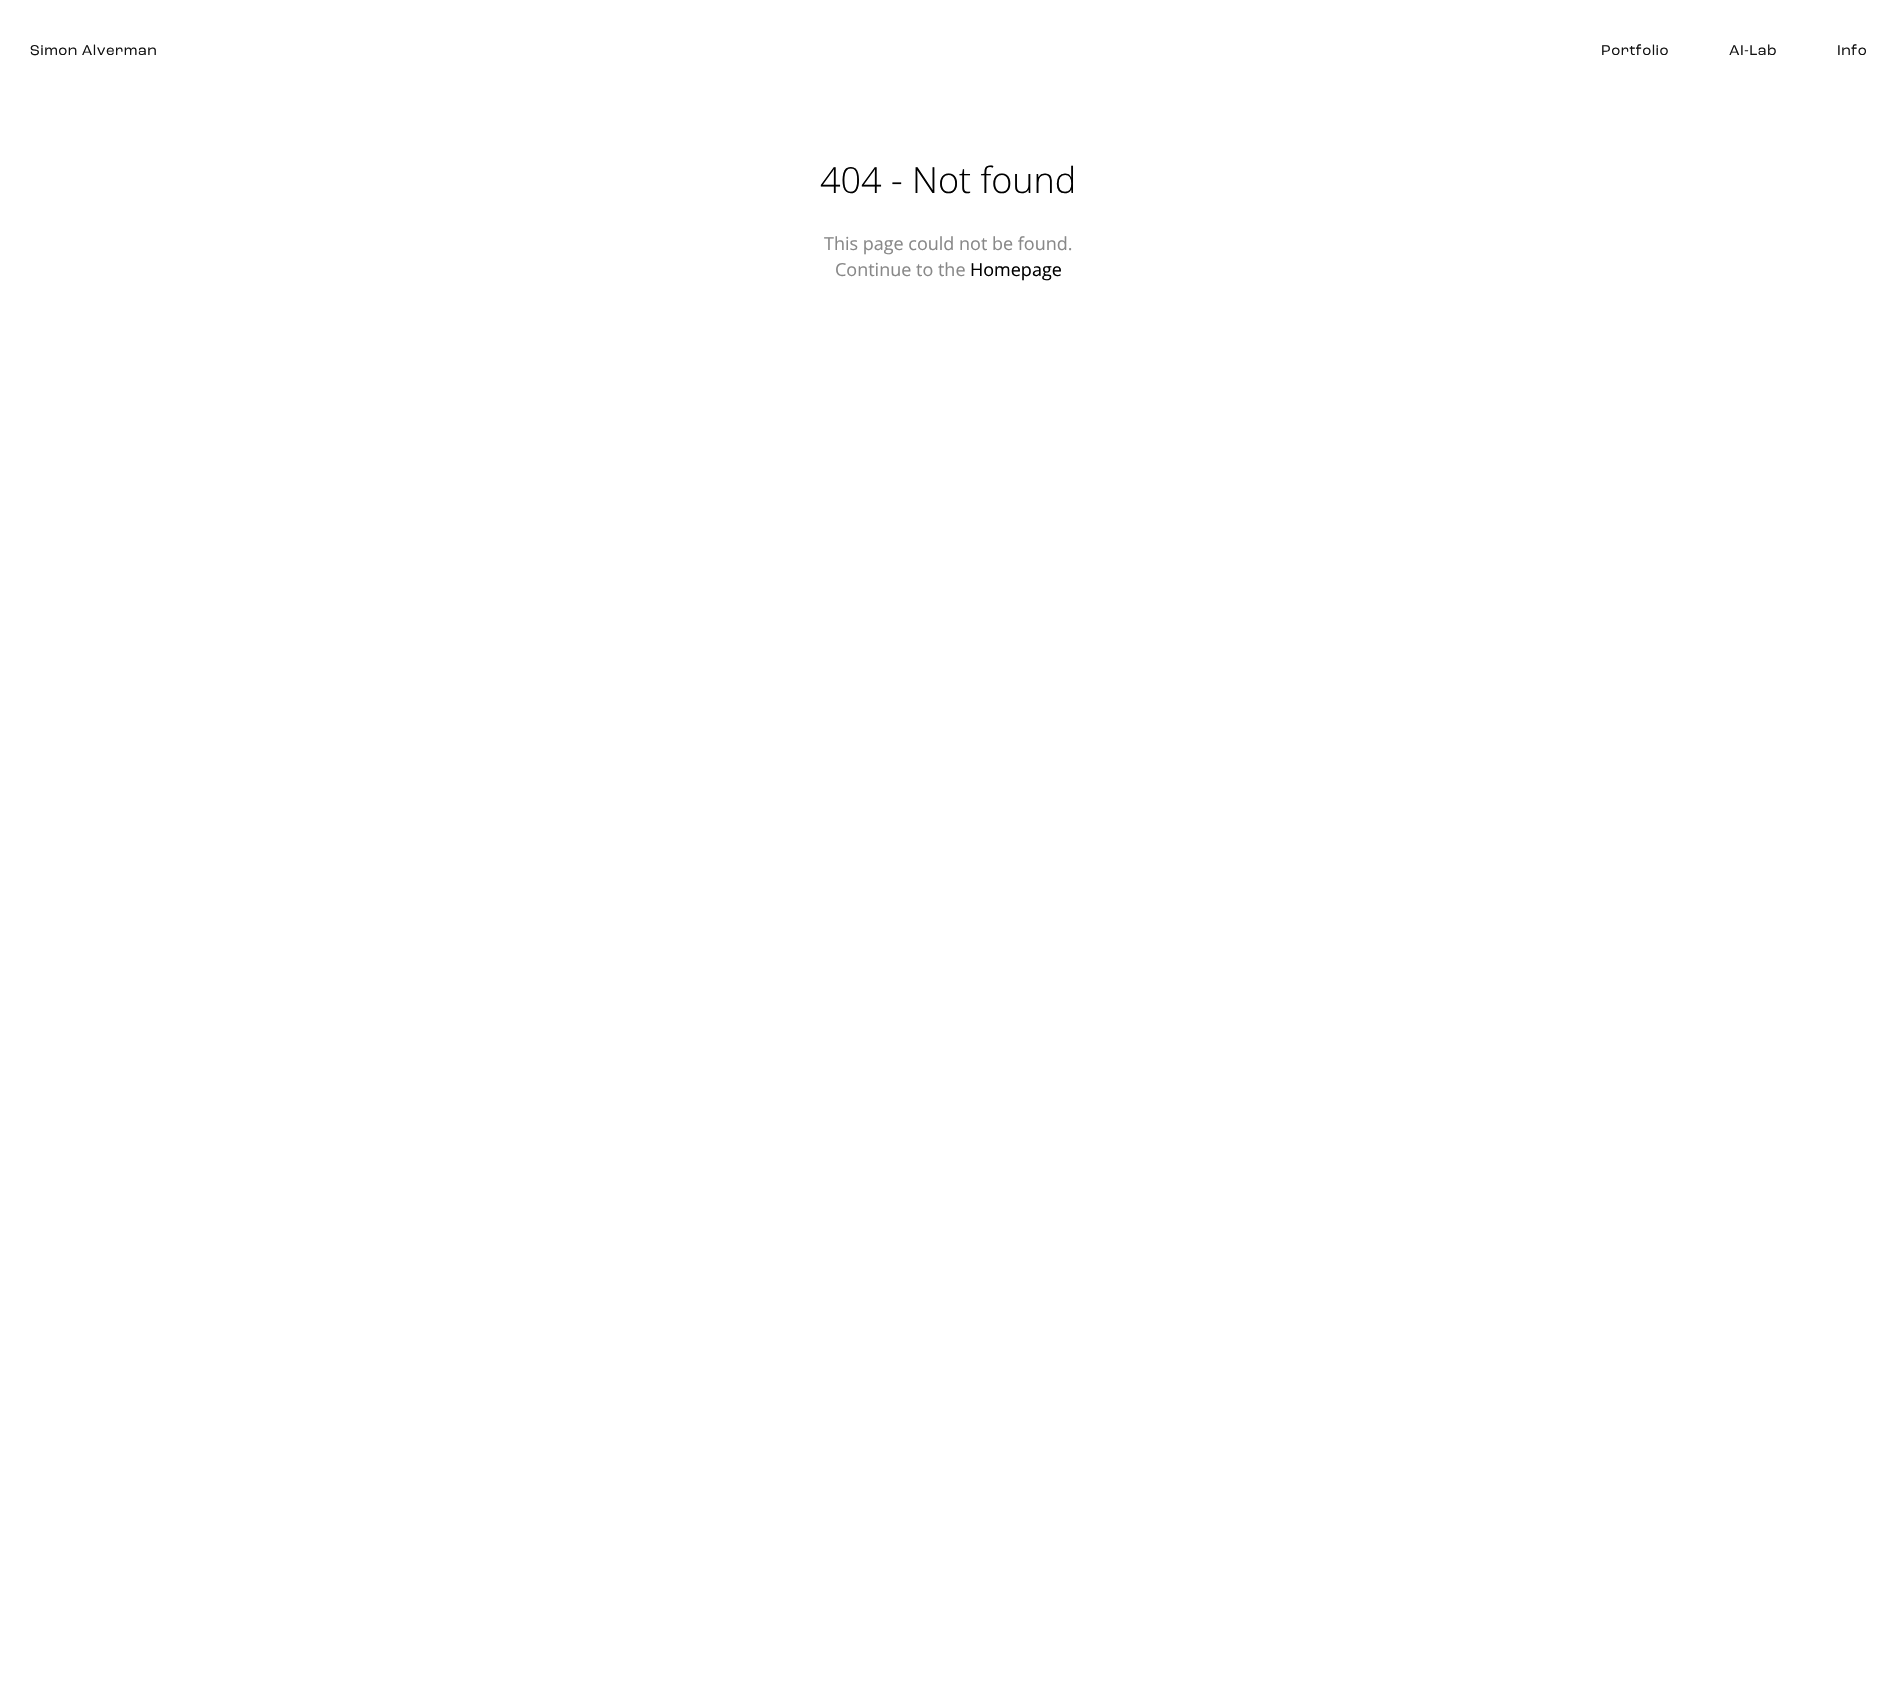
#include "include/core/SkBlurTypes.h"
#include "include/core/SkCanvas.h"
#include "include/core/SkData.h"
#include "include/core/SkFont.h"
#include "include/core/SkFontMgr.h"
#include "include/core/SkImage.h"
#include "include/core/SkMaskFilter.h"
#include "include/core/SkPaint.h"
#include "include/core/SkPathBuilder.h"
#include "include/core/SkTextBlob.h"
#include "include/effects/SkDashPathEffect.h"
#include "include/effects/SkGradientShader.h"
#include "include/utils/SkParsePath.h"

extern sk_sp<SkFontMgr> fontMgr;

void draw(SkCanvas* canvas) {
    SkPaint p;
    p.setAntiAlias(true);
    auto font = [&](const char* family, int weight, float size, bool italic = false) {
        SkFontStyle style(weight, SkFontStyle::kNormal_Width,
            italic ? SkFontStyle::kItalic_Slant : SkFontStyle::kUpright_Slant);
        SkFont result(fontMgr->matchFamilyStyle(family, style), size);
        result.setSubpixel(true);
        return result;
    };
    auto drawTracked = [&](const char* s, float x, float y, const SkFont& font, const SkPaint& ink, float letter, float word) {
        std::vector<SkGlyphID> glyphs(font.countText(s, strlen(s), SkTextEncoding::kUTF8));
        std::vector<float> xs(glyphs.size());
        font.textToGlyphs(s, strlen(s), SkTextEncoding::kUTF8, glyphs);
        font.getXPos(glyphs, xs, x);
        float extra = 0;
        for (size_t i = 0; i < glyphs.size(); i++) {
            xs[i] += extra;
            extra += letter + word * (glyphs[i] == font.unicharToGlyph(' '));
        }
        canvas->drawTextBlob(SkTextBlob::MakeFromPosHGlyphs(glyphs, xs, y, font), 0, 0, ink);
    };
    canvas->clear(0xFFFFFFFF);
    auto font1 = font("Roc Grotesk", 400, 15);
    p.setColor(0xFF121212);
    {
        const struct { const char* s; float x, y; } items[] = {
            {"Simon Alverman", 30, 55},
            {"Portfolio", 1601, 55},
            {"AI-Lab", 1729, 55},
            {"Info", 1837, 55},
        };
        for (auto [s, x, y] : items) {
            drawTracked(s, x, y, font1, p, 0.5f, 0);
        }
    }
    auto font2 = font("Open Sans", 300, 36);
    p.setColor(0xFF000000);
    canvas->drawString("404 - Not found", 820, 193, font2, p);
    auto font3 = font("Open Sans", 400, 18);
    p.setColor(0xFF888888);
    canvas->drawString("This page could not be found.", 824, 250, font3, p);
    canvas->drawString("Continue to the", 835, 276, font3, p);
    p.setColor(0xFF000000);
    canvas->drawString("Homepage", 970, 276, font3, p);
}
